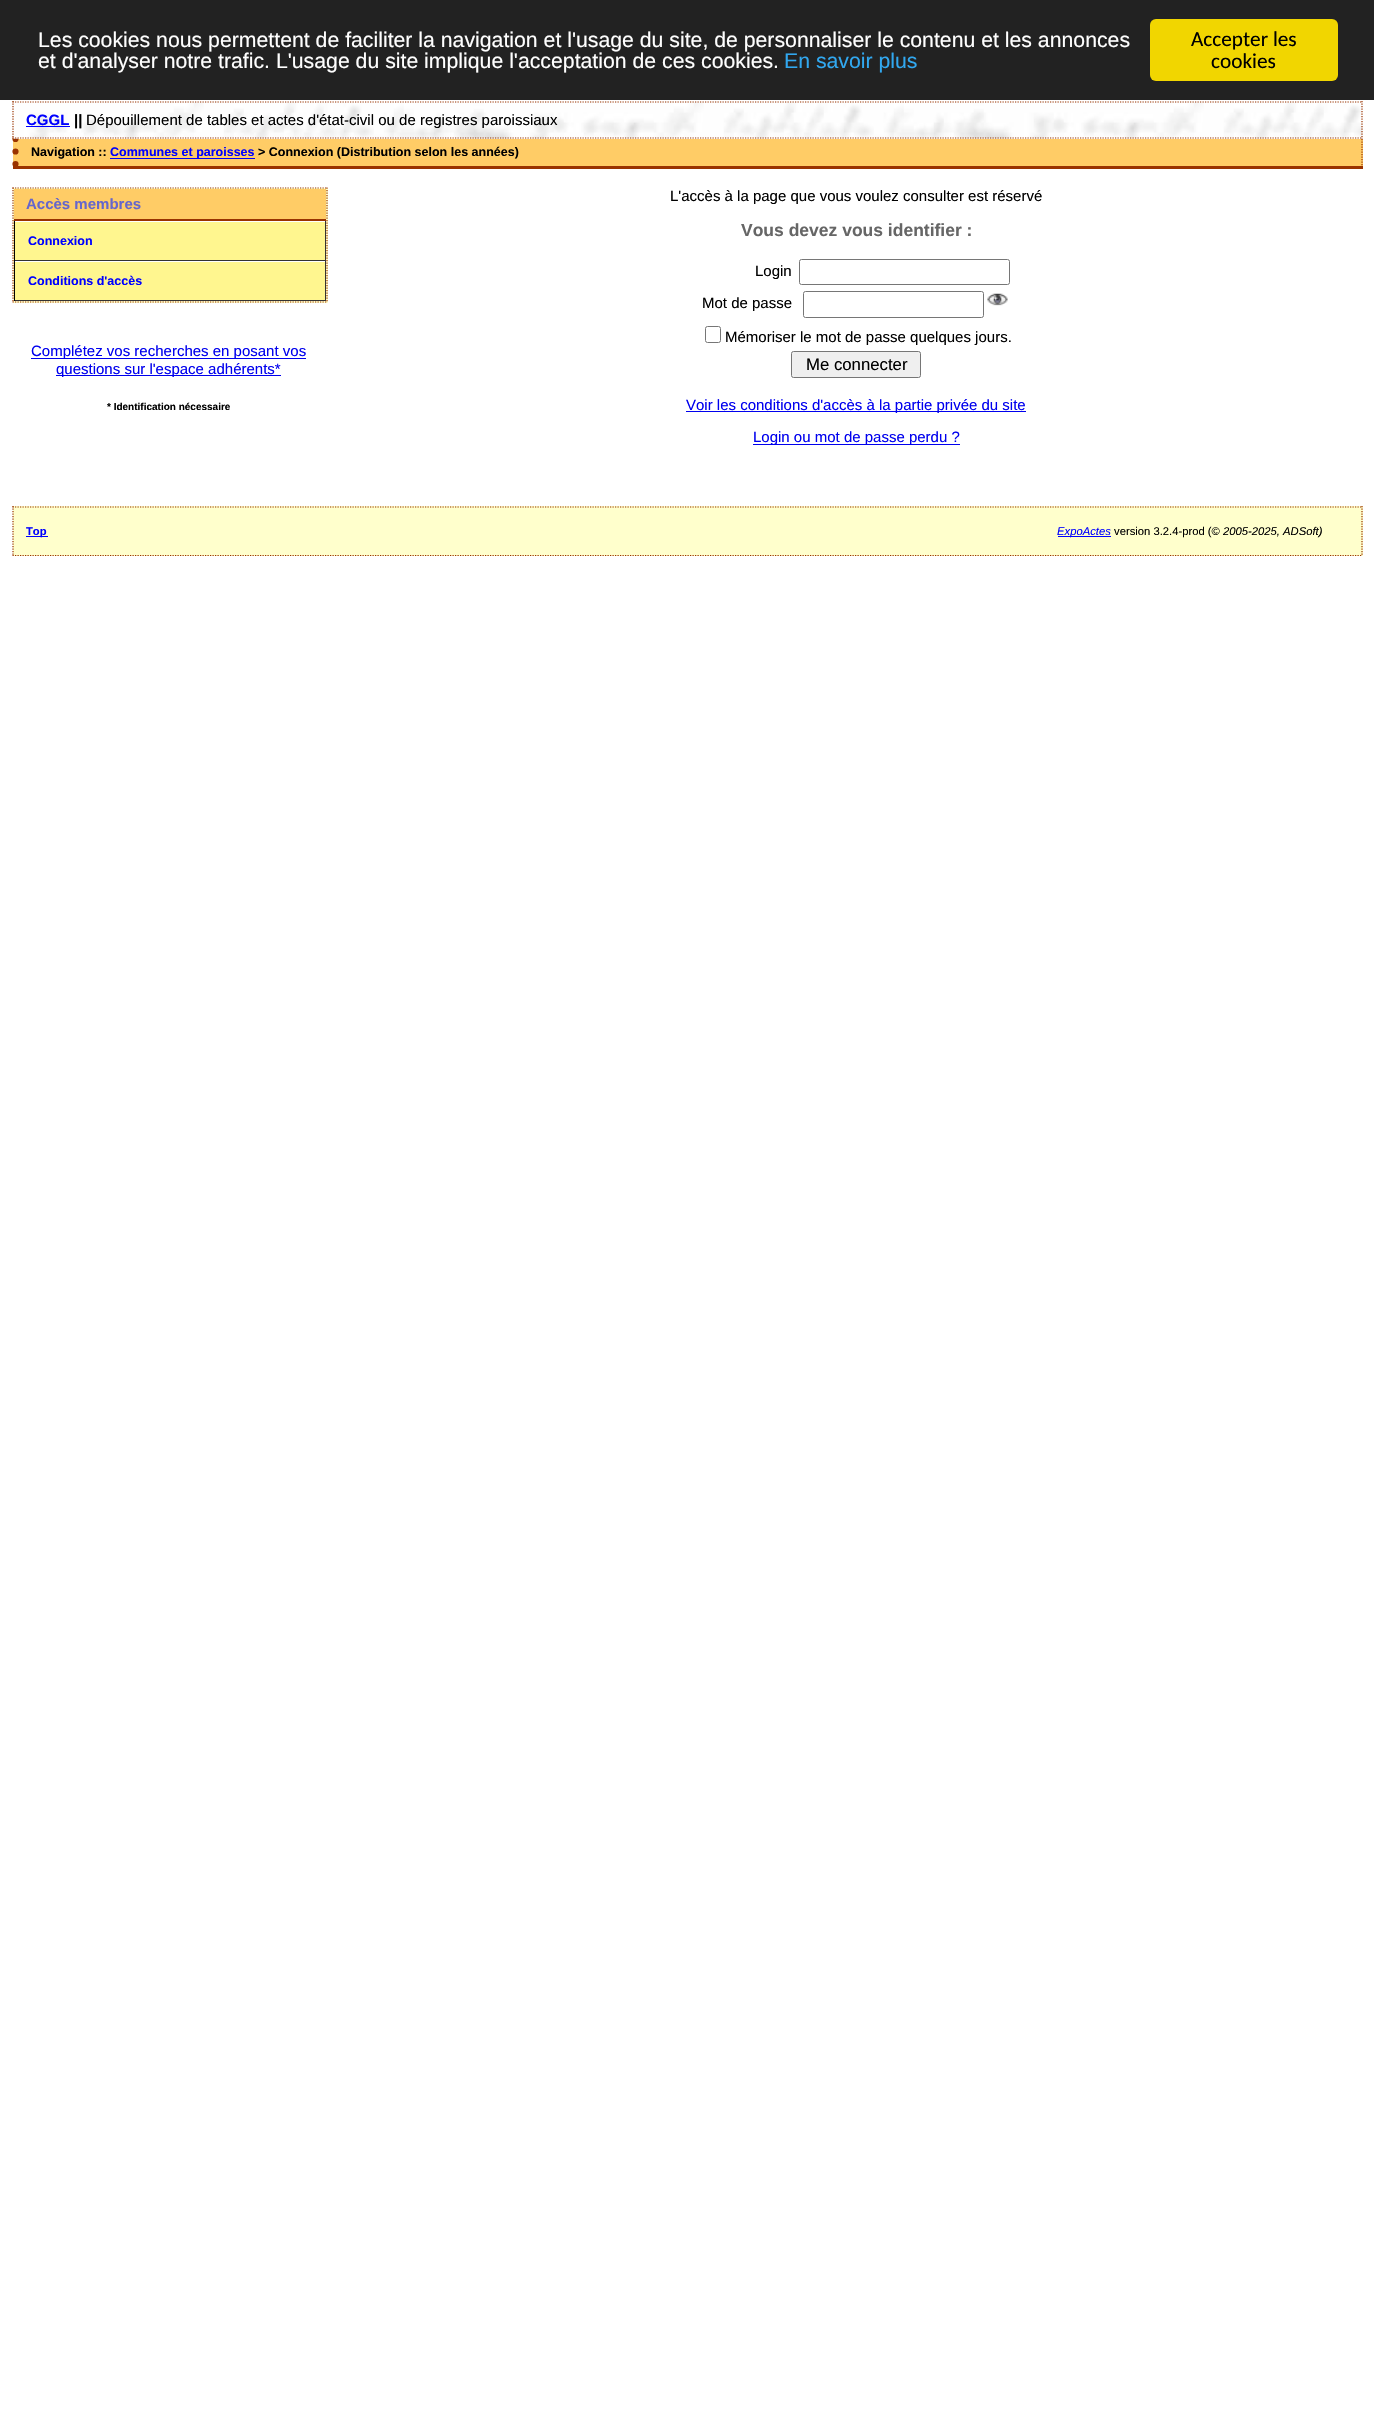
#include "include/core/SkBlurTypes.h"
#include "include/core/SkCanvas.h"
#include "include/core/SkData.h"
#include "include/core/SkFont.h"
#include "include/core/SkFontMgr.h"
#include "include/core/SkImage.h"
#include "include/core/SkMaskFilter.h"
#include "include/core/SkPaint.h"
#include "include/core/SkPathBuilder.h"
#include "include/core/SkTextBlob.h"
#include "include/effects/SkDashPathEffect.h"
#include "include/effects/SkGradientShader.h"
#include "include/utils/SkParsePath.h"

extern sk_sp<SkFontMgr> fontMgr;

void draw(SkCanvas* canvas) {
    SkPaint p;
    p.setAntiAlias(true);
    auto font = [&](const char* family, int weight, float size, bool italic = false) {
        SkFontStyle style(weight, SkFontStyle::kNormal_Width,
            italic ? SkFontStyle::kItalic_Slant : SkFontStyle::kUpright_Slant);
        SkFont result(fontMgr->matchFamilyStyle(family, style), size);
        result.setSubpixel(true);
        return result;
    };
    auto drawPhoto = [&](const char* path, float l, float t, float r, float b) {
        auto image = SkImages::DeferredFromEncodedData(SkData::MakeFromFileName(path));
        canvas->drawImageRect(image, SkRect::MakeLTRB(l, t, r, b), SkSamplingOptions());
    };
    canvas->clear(0xFFFFFFFF);
    p.setColor(0xFF222222);
    canvas->drawRect(SkRect::MakeLTRB(0, 0, 1374, 100), p);
    auto font1 = font("Liberation Sans", 400, 21.25f);
    p.setColor(0xFFFFFFFF);
    canvas->drawString("Les cookies nous permettent de faciliter la navigation et l'usage du site, de personnaliser le contenu et les annonces", 38, 47, font1, p);
    canvas->drawString("et d'analyser notre trafic. L'usage du site implique l'acceptation de ces cookies.", 38, 68, font1, p);
    p.setColor(0xFF31A8F0);
    canvas->drawString("En savoir plus", 784, 68, font1, p);
    p.setColor(0xFFF1D600);
    canvas->drawRoundRect(SkRect::MakeLTRB(1150, 19, 1338, 81), 6, 6, p);
    auto font2 = font("Carlito", 400, 21.25f);
    p.setColor(0xFF000000);
    canvas->drawString("Accepter les", 1191, 46, font2, p);
    canvas->drawString("cookies", 1211, 68, font2, p);
    p.setColor(0xFFFFCC66);
    canvas->drawRect(SkRect::MakeLTRB(13, 139, 1363, 166), p);
    p.setStyle(SkPaint::kStroke_Style);
    p.setStrokeWidth(1.2f);
    p.setColor(0xFF993300);
    p.setPathEffect(SkDashPathEffect::Make({{1.25f, 1.25f}}, 0));
    canvas->drawPath(SkPathBuilder().moveTo(1362, 139).lineTo(1362, 169).detach(), p);
    p.setPathEffect(nullptr);
    p.setStyle(SkPaint::kFill_Style);
    canvas->drawRect(SkRect::MakeLTRB(13, 166, 1363, 169), p);
    p.setStyle(SkPaint::kStroke_Style);
    p.setStrokeWidth(6.2f);
    p.setStrokeCap(SkPaint::kRound_Cap);
    p.setPathEffect(SkDashPathEffect::Make({{0, 12.5f}}, 0));
    canvas->drawPath(SkPathBuilder().moveTo(15.5f, 139).lineTo(15.5f, 169).detach(), p);
    p.setPathEffect(nullptr);
    drawPhoto("media/1.png", 12, 101, 1363, 139);
    p.setStrokeWidth(1.2f);
    p.setStrokeCap(SkPaint::kButt_Cap);
    p.setPathEffect(SkDashPathEffect::Make({{1.25f, 1.25f}}, 0));
    canvas->drawPath(SkPathBuilder().moveTo(12.5f, 102).lineTo(1362.5f, 102).detach(), p);
    p.setPathEffect(nullptr);
    p.setPathEffect(SkDashPathEffect::Make({{1.25f, 1.25f}}, 0));
    canvas->drawPath(SkPathBuilder().moveTo(1362, 101).lineTo(1362, 139).detach(), p);
    p.setPathEffect(nullptr);
    p.setPathEffect(SkDashPathEffect::Make({{1.25f, 1.25f}}, 0));
    canvas->drawPath(SkPathBuilder().moveTo(12.5f, 138).lineTo(1362.5f, 138).detach(), p);
    p.setPathEffect(nullptr);
    p.setPathEffect(SkDashPathEffect::Make({{1.25f, 1.25f}}, 0));
    canvas->drawPath(SkPathBuilder().moveTo(13, 101).lineTo(13, 139).detach(), p);
    p.setPathEffect(nullptr);
    auto font3 = font("Liberation Sans", 700, 15);
    p.setStyle(SkPaint::kFill_Style);
    p.setColor(0xFF0000FF);
    canvas->drawString("CGGL", 26, 125, font3, p);
    canvas->drawRect(SkRect::MakeLTRB(26, 126, 70, 127), p);
    p.setColor(0xFF000000);
    canvas->drawString("||", 74, 125, font3, p);
    auto font4 = font("Liberation Sans", 400, 15);
    canvas->drawString("Dépouillement de tables et actes d'état-civil ou de registres paroissiaux", 86, 125, font4, p);
    auto font5 = font("Liberation Sans", 700, 12.5f);
    canvas->drawString("Navigation ::", 31, 156, font5, p);
    p.setColor(0xFF0000FF);
    canvas->drawRect(SkRect::MakeLTRB(110, 158, 255, 159), p);
    canvas->drawString("Communes et paroisses", 110, 156, font5, p);
    p.setColor(0xFF000000);
    canvas->drawString("> Connexion (Distribution selon les années)", 258, 156, font5, p);
    p.setColor(0xFFFFFFCC);
    canvas->drawRect(SkRect::MakeLTRB(13, 188, 328, 303), p);
    p.setStyle(SkPaint::kStroke_Style);
    p.setColor(0xFF993300);
    p.setPathEffect(SkDashPathEffect::Make({{1.25f, 1.25f}}, 0));
    canvas->drawPath(SkPathBuilder().moveTo(12.5f, 188).lineTo(327.5f, 188).detach(), p);
    p.setPathEffect(nullptr);
    p.setPathEffect(SkDashPathEffect::Make({{1.25f, 1.25f}}, 0));
    canvas->drawPath(SkPathBuilder().moveTo(327, 187.5f).lineTo(327, 302.5f).detach(), p);
    p.setPathEffect(nullptr);
    p.setPathEffect(SkDashPathEffect::Make({{1.25f, 1.25f}}, 0));
    canvas->drawPath(SkPathBuilder().moveTo(12.5f, 302).lineTo(327.5f, 302).detach(), p);
    p.setPathEffect(nullptr);
    p.setPathEffect(SkDashPathEffect::Make({{1.25f, 1.25f}}, 0));
    canvas->drawPath(SkPathBuilder().moveTo(13, 187.5f).lineTo(13, 302.5f).detach(), p);
    p.setPathEffect(nullptr);
    p.setStyle(SkPaint::kFill_Style);
    p.setColor(0xFFFFCC66);
    canvas->drawRect(SkRect::MakeLTRB(14, 189, 326, 219), p);
    p.setColor(0xFF993300);
    canvas->drawRect(SkRect::MakeLTRB(14, 219, 326, 221), p);
    p.setColor(0xFF6666CC);
    canvas->drawString("Accès membres", 26, 209, font3, p);
    {
        const struct { float l, t, r, b; SkColor color; } items[] = {
            {15, 222, 325, 260, 0xFFFFF68F},
            {14, 221, 326, 222, 0xFFFFFFFF},
            {325, 221, 326, 261, 0xFF333333},
            {14, 260, 326, 261, 0xFF333333},
            {14, 221, 15, 261, 0xFF000000},
        };
        for (auto [l, t, r, b, color] : items) {
            p.setColor(color);
            canvas->drawRect(SkRect::MakeLTRB(l, t, r, b), p);
        }
    }
    p.setColor(0xFF0000FF);
    canvas->drawString("Connexion", 28, 245, font5, p);
    {
        const struct { float l, t, r, b; SkColor color; } items[] = {
            {15, 262, 325, 300, 0xFFFFF68F},
            {14, 261, 326, 262, 0xFFFFFFFF},
            {325, 261, 326, 301, 0xFF333333},
            {14, 300, 326, 301, 0xFF333333},
            {14, 261, 15, 301, 0xFF000000},
        };
        for (auto [l, t, r, b, color] : items) {
            p.setColor(color);
            canvas->drawRect(SkRect::MakeLTRB(l, t, r, b), p);
        }
    }
    p.setColor(0xFF0000FF);
    canvas->drawString("Conditions d'accès", 28, 285, font5, p);
    p.setColor(0xFF0000EE);
    canvas->drawRect(SkRect::MakeLTRB(31, 358, 306, 359), p);
    canvas->drawString("Complétez vos recherches en posant vos", 31, 356, font4, p);
    canvas->drawRect(SkRect::MakeLTRB(56, 375, 281, 376), p);
    canvas->drawString("questions sur l'espace adhérents*", 56, 374, font4, p);
    auto font6 = font("Liberation Sans", 700, 10);
    p.setColor(0xFF000000);
    canvas->drawString("* Identification nécessaire", 107, 410, font6, p);
    canvas->drawString("L'accès à la page que vous voulez consulter est réservé", 670, 201, font4, p);
    auto font7 = font("Liberation Sans", 700, 17.5f);
    p.setColor(0xFF666666);
    canvas->drawString("Vous devez vous identifier :", 741, 236, font7, p);
    p.setColor(0xFF000000);
    canvas->drawString("Login", 755, 276, font4, p);
    p.setStyle(SkPaint::kStroke_Style);
    p.setStrokeWidth(1);
    p.setColor(0xFF767676);
    canvas->drawRoundRect(SkRect::MakeLTRB(799.5f, 259.5f, 1009.5f, 284.5f), 2, 2, p);
    p.setStyle(SkPaint::kFill_Style);
    p.setColor(0xFF000000);
    canvas->drawString("Mot de passe", 702, 308, font4, p);
    p.setStyle(SkPaint::kStroke_Style);
    p.setColor(0xFF767676);
    canvas->drawRoundRect(SkRect::MakeLTRB(803.5f, 291.5f, 983.5f, 317.5f), 2, 2, p);
    drawPhoto("media/2.png", 987, 293, 1008, 306);
    canvas->drawRoundRect(SkRect::MakeLTRB(705.5f, 326.5f, 720.5f, 342.5f), 2, 2, p);
    p.setStyle(SkPaint::kFill_Style);
    p.setColor(0xFF000000);
    canvas->drawString("Mémoriser le mot de passe quelques jours.", 725, 342, font4, p);
    p.setColor(0xFFEFEFEF);
    canvas->drawRoundRect(SkRect::MakeLTRB(791.5f, 351.5f, 920.5f, 377.5f), 2, 2, p);
    p.setStyle(SkPaint::kStroke_Style);
    p.setColor(0xFF767676);
    canvas->drawRoundRect(SkRect::MakeLTRB(791.5f, 351.5f, 920.5f, 377.5f), 2, 2, p);
    auto font8 = font("Liberation Sans", 400, 16.75f);
    p.setStyle(SkPaint::kFill_Style);
    p.setColor(0xFF000000);
    canvas->drawString("Me connecter", 806, 370, font8, p);
    p.setColor(0xFF0000EE);
    canvas->drawRect(SkRect::MakeLTRB(686, 411, 1026, 412), p);
    canvas->drawString("Voir les conditions d'accès à la partie privée du site", 686, 410, font4, p);
    canvas->drawRect(SkRect::MakeLTRB(753, 444, 960, 445), p);
    canvas->drawString("Login ou mot de passe perdu ?", 753, 442, font4, p);
    p.setColor(0xFFFFFFCC);
    canvas->drawRect(SkRect::MakeLTRB(13, 506, 1363, 556), p);
    p.setStyle(SkPaint::kStroke_Style);
    p.setStrokeWidth(1.2f);
    p.setColor(0xFF993300);
    p.setPathEffect(SkDashPathEffect::Make({{1.25f, 1.25f}}, 0));
    canvas->drawPath(SkPathBuilder().moveTo(12.5f, 507).lineTo(1362.5f, 507).detach(), p);
    p.setPathEffect(nullptr);
    p.setPathEffect(SkDashPathEffect::Make({{1.25f, 1.25f}}, 0));
    canvas->drawPath(SkPathBuilder().moveTo(1362, 506).lineTo(1362, 556).detach(), p);
    p.setPathEffect(nullptr);
    p.setPathEffect(SkDashPathEffect::Make({{1.25f, 1.25f}}, 0));
    canvas->drawPath(SkPathBuilder().moveTo(12.5f, 555.5f).lineTo(1362.5f, 555.5f).detach(), p);
    p.setPathEffect(nullptr);
    p.setPathEffect(SkDashPathEffect::Make({{1.25f, 1.25f}}, 0));
    canvas->drawPath(SkPathBuilder().moveTo(13, 506).lineTo(13, 556).detach(), p);
    p.setPathEffect(nullptr);
    p.setStyle(SkPaint::kFill_Style);
    p.setColor(0xFF0000FF);
    canvas->drawRect(SkRect::MakeLTRB(26, 536, 48, 537), p);
    auto font9 = font("Liberation Sans", 700, 11.25f);
    canvas->drawString("Top", 26, 535, font9, p);
    canvas->drawRect(SkRect::MakeLTRB(1058, 536, 1111, 537), p);
    auto font10 = font("Liberation Sans", 400, 11.25f, true);
    canvas->drawString("ExpoActes", 1057, 535, font10, p);
    auto font11 = font("Liberation Sans", 400, 11.25f);
    p.setColor(0xFF000000);
    canvas->drawString("version 3.2.4-prod (©", 1114, 535, font11, p);
    canvas->drawString("2005-2025, ADSoft)", 1223, 535, font10, p);
}
